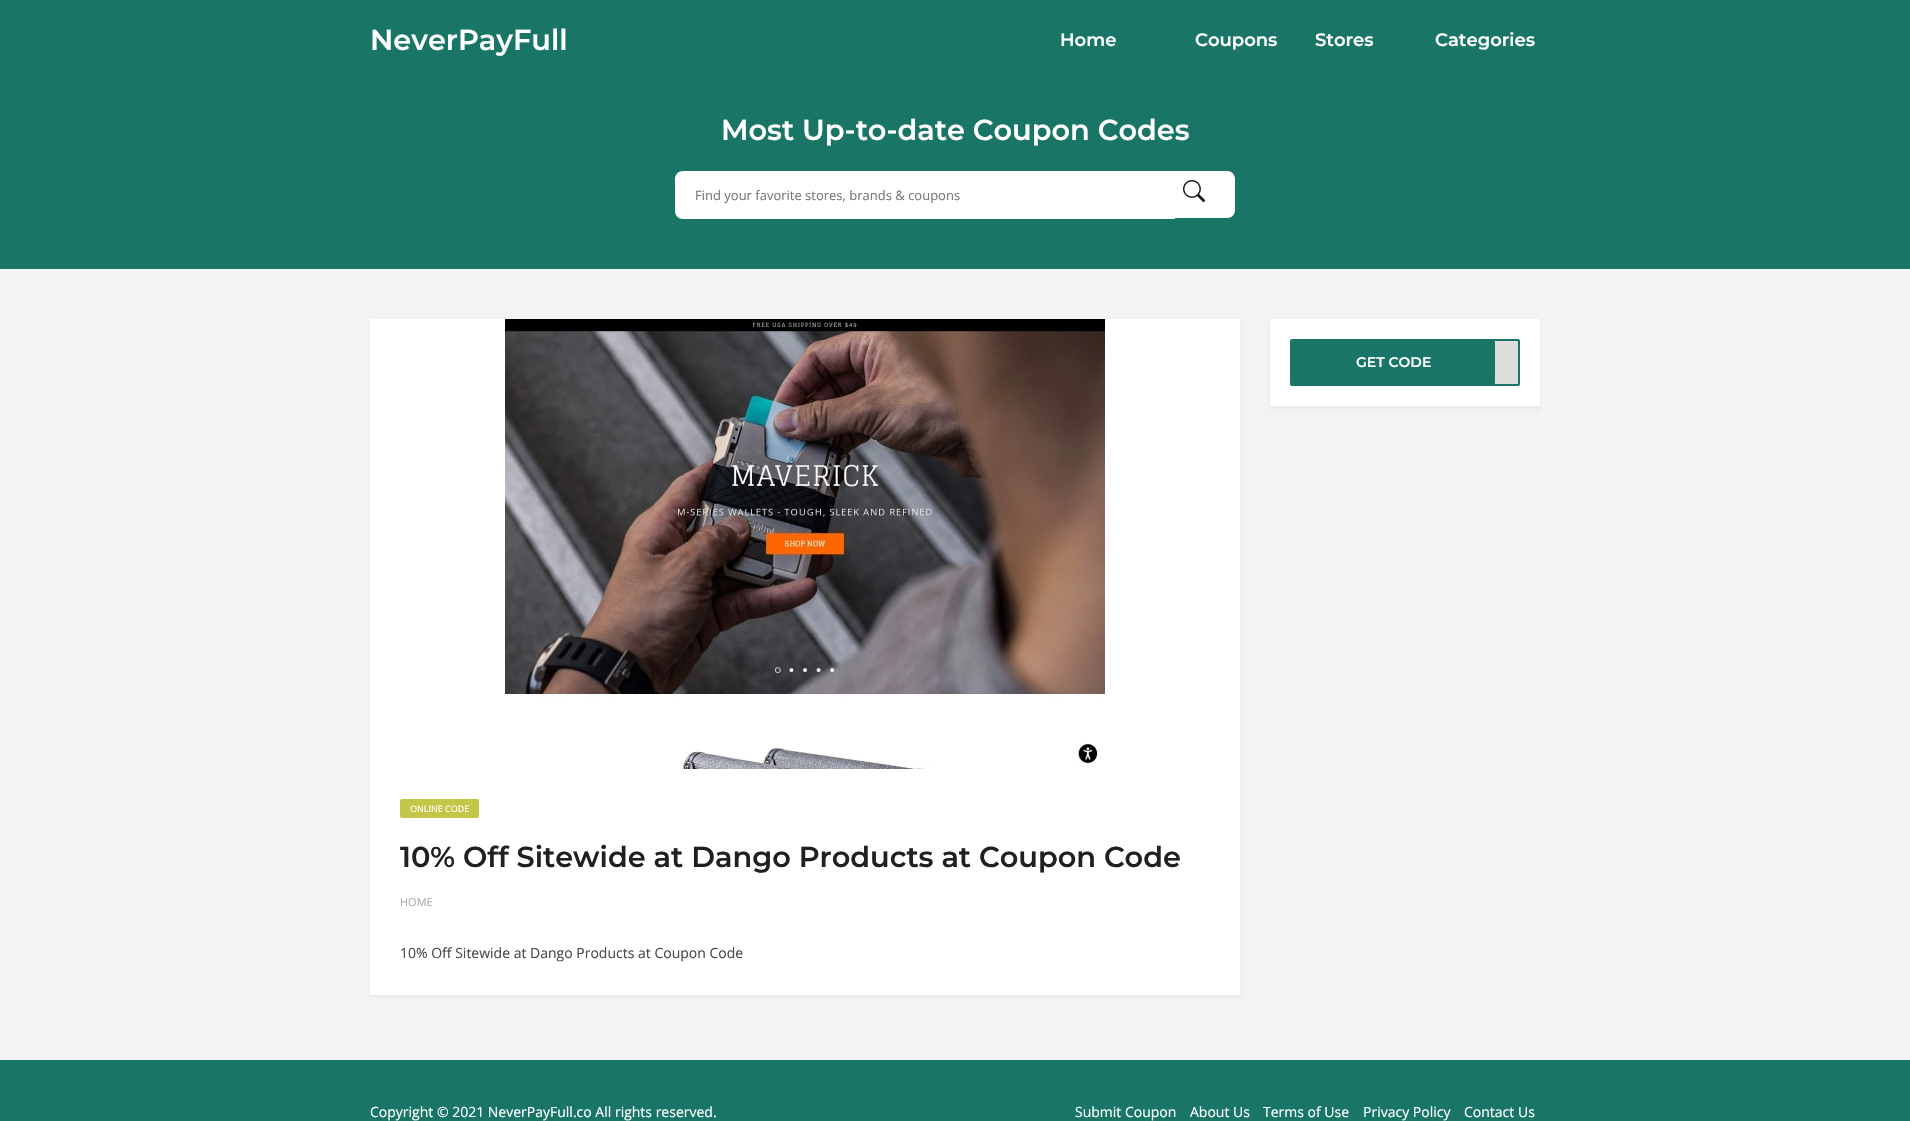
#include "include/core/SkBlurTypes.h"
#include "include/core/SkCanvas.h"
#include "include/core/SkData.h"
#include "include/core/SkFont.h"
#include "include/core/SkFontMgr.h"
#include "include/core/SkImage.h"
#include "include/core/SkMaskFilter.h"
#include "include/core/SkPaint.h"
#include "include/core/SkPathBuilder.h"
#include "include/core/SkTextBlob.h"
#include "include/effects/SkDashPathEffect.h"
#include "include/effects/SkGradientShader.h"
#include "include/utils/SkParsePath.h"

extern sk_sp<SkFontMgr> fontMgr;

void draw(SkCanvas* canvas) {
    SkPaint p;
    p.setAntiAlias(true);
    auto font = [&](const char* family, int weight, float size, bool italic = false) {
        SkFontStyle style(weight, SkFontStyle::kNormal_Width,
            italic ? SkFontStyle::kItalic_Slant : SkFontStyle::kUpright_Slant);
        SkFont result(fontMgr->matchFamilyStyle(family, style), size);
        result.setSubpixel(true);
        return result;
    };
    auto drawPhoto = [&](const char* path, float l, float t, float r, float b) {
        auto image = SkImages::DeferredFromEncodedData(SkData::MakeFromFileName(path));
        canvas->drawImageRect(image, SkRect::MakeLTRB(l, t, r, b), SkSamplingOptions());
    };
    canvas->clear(0xFFF4F4F4);
    p.setColor(0xFF197667);
    canvas->drawRect(SkRect::MakeLTRB(0, 0, 1910, 269), p);
    auto font1 = font("Montserrat", 100, 28.8f);
    p.setColor(0xFFFFFFFF);
    canvas->drawString("NeverPayFull", 370, 50, font1, p);
    auto font2 = font("Montserrat", 100, 18);
    {
        const struct { const char* s; float x, y; } items[] = {
            {"Home", 1060, 46},
            {"Coupons", 1195, 46},
            {"Stores", 1315, 46},
            {"Categories", 1435, 46},
        };
        for (auto [s, x, y] : items) {
            canvas->drawString(s, x, y, font2, p);
        }
    }
    canvas->drawString("Most Up-to-date Coupon Codes", 721, 140, font1, p);
    canvas->drawPath(SkPathBuilder().moveTo(683, 171).lineTo(1175, 171).lineTo(1175, 219).lineTo(683, 219).cubicTo(678.5f, 219, 675, 215.5f, 675, 211).lineTo(675, 179).cubicTo(675, 174.5f, 678.5f, 171, 683, 171).close().detach(), p);
    auto font3 = font("Open Sans", 400, 13);
    p.setColor(0xFF777777);
    canvas->drawString("Find your favorite stores, brands & coupons", 695, 200, font3, p);
    p.setColor(0xFFFFFFFF);
    canvas->drawPath(SkPathBuilder().moveTo(1153, 171).lineTo(1227, 171).cubicTo(1231.5f, 171, 1235, 174.5f, 1235, 179).lineTo(1235, 210).cubicTo(1235, 214.5f, 1231.5f, 218, 1227, 218).lineTo(1153, 218).close().detach(), p);
    drawPhoto("media/1.png", 1183, 180, 1205, 202);
    p.setColor(0x0D000000);
    p.setMaskFilter(SkMaskFilter::MakeBlur(kNormal_SkBlurStyle, 2));
    canvas->drawRect(SkRect::MakeLTRB(1270, 321, 1540, 409), p);
    p.setMaskFilter(nullptr);
    p.setColor(0xFFFFFFFF);
    canvas->drawRect(SkRect::MakeLTRB(1270, 319, 1540, 406), p);
    p.setColor(0xFFEEEEEE);
    canvas->drawRect(SkRect::MakeLTRB(1270, 406, 1540, 407), p);
    p.setStyle(SkPaint::kStroke_Style);
    p.setStrokeWidth(2);
    p.setColor(0xFF197667);
    canvas->drawRoundRect(SkRect::MakeLTRB(1291, 340, 1519, 385), 1, 1, p);
    p.setStyle(SkPaint::kFill_Style);
    p.setColor(0xFFDDDDDD);
    canvas->drawRect(SkRect::MakeLTRB(1292, 341, 1518, 384), p);
    p.setColor(0xFF197667);
    canvas->drawRoundRect(SkRect::MakeLTRB(1292, 341, 1495, 384), 1, 1, p);
    auto font4 = font("Montserrat", 100, 14);
    p.setColor(0xFFFFFFFF);
    canvas->drawString("GET CODE", 1356, 367, font4, p);
    p.setColor(0x0D000000);
    p.setMaskFilter(SkMaskFilter::MakeBlur(kNormal_SkBlurStyle, 2));
    canvas->drawRect(SkRect::MakeLTRB(370, 321, 1240, 997), p);
    p.setMaskFilter(nullptr);
    p.setColor(0xFFFFFFFF);
    canvas->drawRect(SkRect::MakeLTRB(370, 319, 1240, 995), p);
    drawPhoto("media/2.png", 505, 319, 1105, 769);
    p.setColor(0xFFC2C748);
    canvas->drawRoundRect(SkRect::MakeLTRB(400, 799, 479, 818), 2, 2, p);
    auto font5 = font("Open Sans", 400, 9);
    p.setColor(0xFFFFFFFF);
    canvas->drawString("ONLINE CODE", 410, 812, font5, p);
    p.setColor(0xFF202020);
    canvas->drawString("10% Off Sitewide at Dango Products at Coupon Code", 400, 867, font1, p);
    auto font6 = font("Open Sans", 400, 11);
    p.setColor(0xFFAAAAAA);
    canvas->drawString("HOME", 400, 906, font6, p);
    auto font7 = font("Open Sans", 400, 14);
    p.setColor(0xFF484848);
    canvas->drawString("10% Off Sitewide at Dango Products at Coupon Code", 400, 958, font7, p);
    p.setColor(0xFF197667);
    canvas->drawRect(SkRect::MakeLTRB(0, 1060, 1910, 1121), p);
    p.setColor(0xFFFFFFFF);
    {
        const struct { const char* s; float x, y; } items[] = {
            {"Copyright © 2021 NeverPayFull.co All rights reserved.", 370, 1117},
            {"Submit Coupon", 1075, 1117},
            {"About Us", 1190, 1117},
            {"Terms of Use", 1263, 1117},
            {"Privacy Policy", 1363, 1117},
            {"Contact Us", 1464, 1117},
        };
        for (auto [s, x, y] : items) {
            canvas->drawString(s, x, y, font7, p);
        }
    }
}
